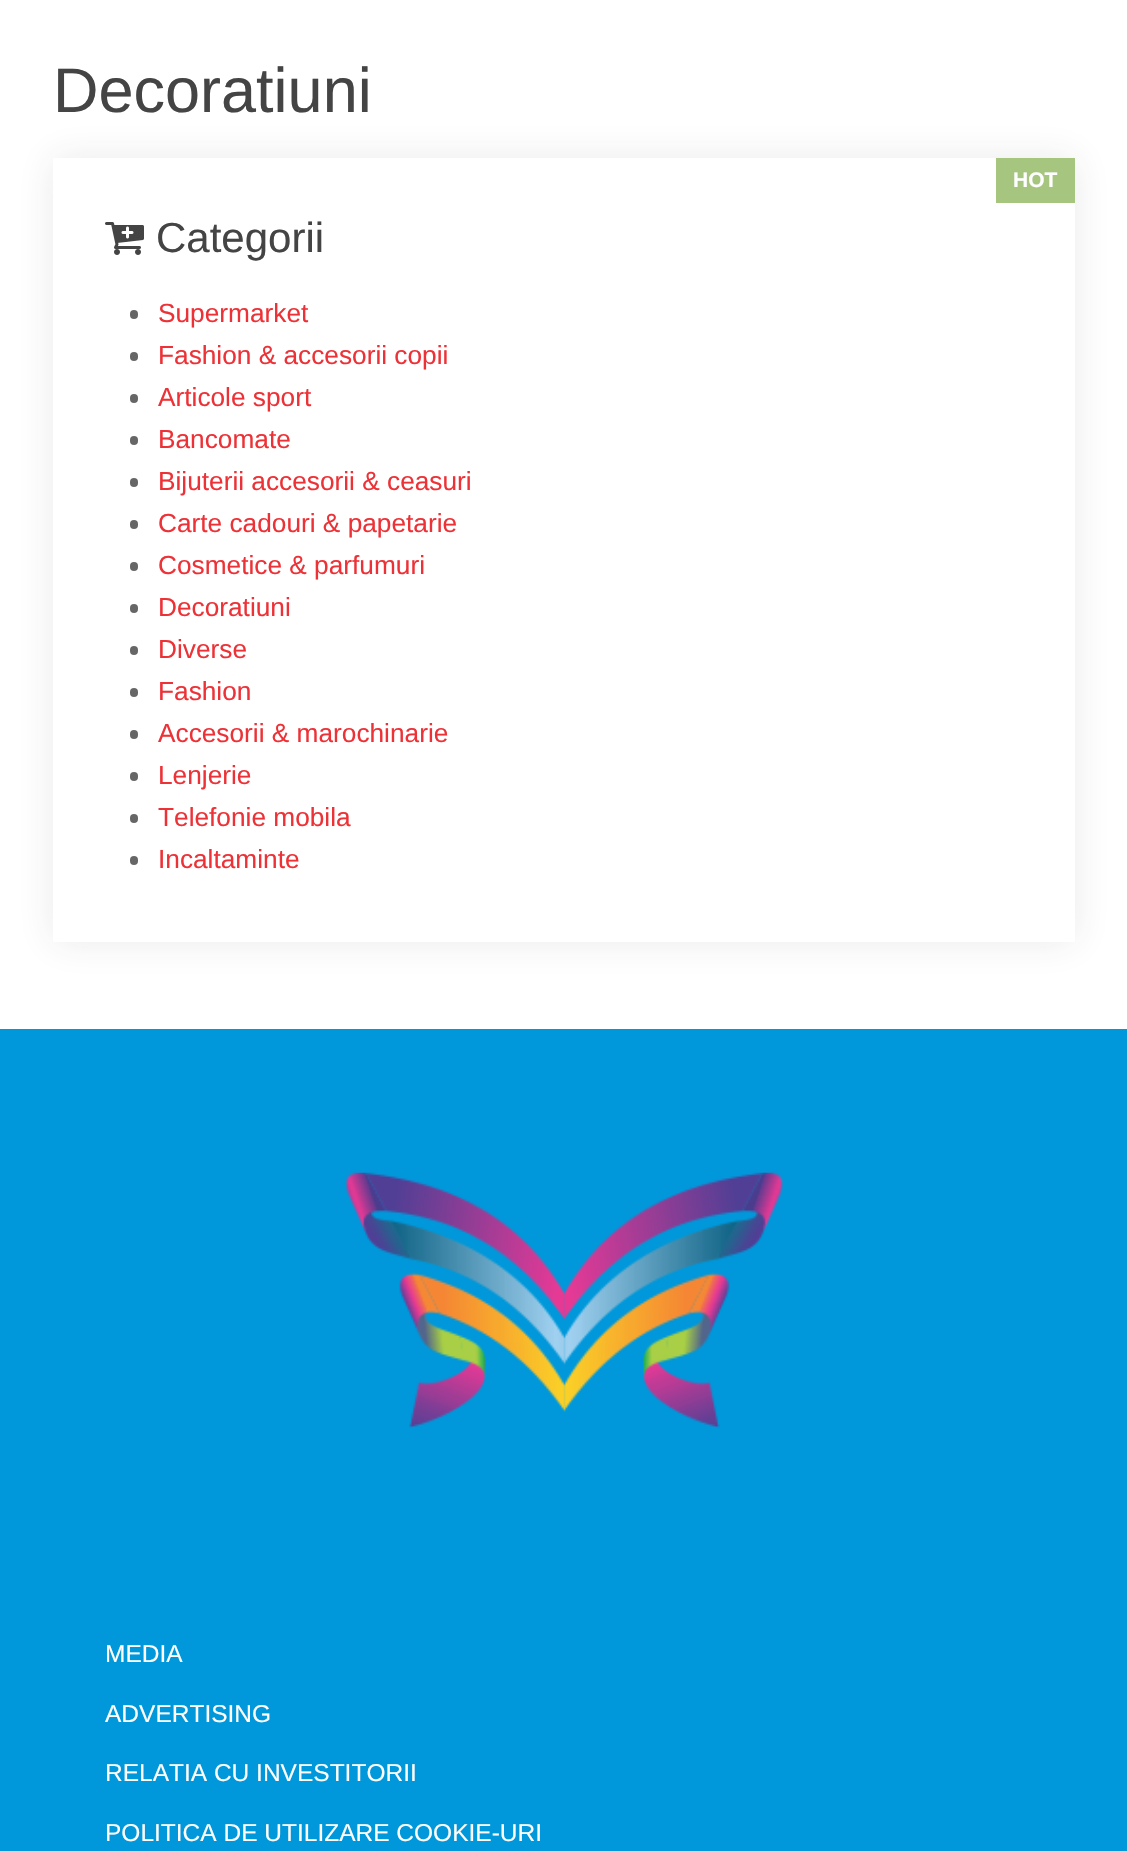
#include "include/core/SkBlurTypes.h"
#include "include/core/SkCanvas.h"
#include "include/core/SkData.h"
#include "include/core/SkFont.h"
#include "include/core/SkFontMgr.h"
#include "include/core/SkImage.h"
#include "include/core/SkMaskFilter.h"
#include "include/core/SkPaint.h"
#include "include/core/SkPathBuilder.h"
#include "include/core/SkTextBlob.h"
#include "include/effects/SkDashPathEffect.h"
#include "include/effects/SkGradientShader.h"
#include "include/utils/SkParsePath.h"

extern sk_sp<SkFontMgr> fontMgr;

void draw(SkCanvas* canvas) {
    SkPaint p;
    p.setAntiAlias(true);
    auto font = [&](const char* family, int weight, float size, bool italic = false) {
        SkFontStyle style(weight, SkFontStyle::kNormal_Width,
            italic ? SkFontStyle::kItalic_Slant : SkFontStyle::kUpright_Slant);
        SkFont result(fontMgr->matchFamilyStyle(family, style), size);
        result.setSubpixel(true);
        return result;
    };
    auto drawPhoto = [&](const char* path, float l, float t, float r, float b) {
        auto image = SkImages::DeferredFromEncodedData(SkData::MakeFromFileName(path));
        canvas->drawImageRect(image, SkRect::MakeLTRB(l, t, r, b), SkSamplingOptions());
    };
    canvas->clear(0xFFFFFFFF);
    auto font1 = font("Liberation Sans", 400, 63);
    p.setColor(0xFF444444);
    canvas->drawString("Decoratiuni", 53, 112, font1, p);
    p.setColor(0x1A333333);
    p.setMaskFilter(SkMaskFilter::MakeBlur(kNormal_SkBlurStyle, 17.5f));
    canvas->drawRect(SkRect::MakeLTRB(53, 158, 1075, 942), p);
    p.setMaskFilter(nullptr);
    p.setColor(0xFFFFFFFF);
    canvas->drawRect(SkRect::MakeLTRB(53, 158, 1075, 942), p);
    p.setColor(0xFFA6C67F);
    canvas->drawRect(SkRect::MakeLTRB(996, 158, 1075, 203), p);
    auto font2 = font("Liberation Sans", 700, 21);
    p.setColor(0xFFFFFFFF);
    canvas->drawString("HOT", 1013, 187, font2, p);
    drawPhoto("media/1.png", 105, 222, 144, 255);
    auto font3 = font("Liberation Sans", 400, 42);
    p.setColor(0xFF444444);
    canvas->drawString("Categorii", 156, 252, font3, p);
    p.setColor(0xFF666666);
    canvas->drawRoundRect(SkRect::MakeLTRB(130, 310, 138, 319), 4, 4, p);
    auto font4 = font("Liberation Sans", 400, 26.25f);
    p.setColor(0xFFED3237);
    canvas->drawString("Supermarket", 158, 322, font4, p);
    p.setColor(0xFF666666);
    canvas->drawRoundRect(SkRect::MakeLTRB(130, 352, 138, 361), 4, 4, p);
    p.setColor(0xFFED3237);
    canvas->drawString("Fashion & accesorii copii", 158, 364, font4, p);
    p.setColor(0xFF666666);
    canvas->drawRoundRect(SkRect::MakeLTRB(130, 394, 138, 403), 4, 4, p);
    p.setColor(0xFFED3237);
    canvas->drawString("Articole sport", 158, 406, font4, p);
    p.setColor(0xFF666666);
    canvas->drawRoundRect(SkRect::MakeLTRB(130, 436, 138, 445), 4, 4, p);
    p.setColor(0xFFED3237);
    canvas->drawString("Bancomate", 158, 448, font4, p);
    p.setColor(0xFF666666);
    canvas->drawRoundRect(SkRect::MakeLTRB(130, 478, 138, 487), 4, 4, p);
    p.setColor(0xFFED3237);
    canvas->drawString("Bijuterii accesorii & ceasuri", 158, 490, font4, p);
    p.setColor(0xFF666666);
    canvas->drawRoundRect(SkRect::MakeLTRB(130, 520, 138, 529), 4, 4, p);
    p.setColor(0xFFED3237);
    canvas->drawString("Carte cadouri & papetarie", 158, 532, font4, p);
    p.setColor(0xFF666666);
    canvas->drawRoundRect(SkRect::MakeLTRB(130, 562, 138, 571), 4, 4, p);
    p.setColor(0xFFED3237);
    canvas->drawString("Cosmetice & parfumuri", 158, 574, font4, p);
    p.setColor(0xFF666666);
    canvas->drawRoundRect(SkRect::MakeLTRB(130, 604, 138, 613), 4, 4, p);
    p.setColor(0xFFED3237);
    canvas->drawString("Decoratiuni", 158, 616, font4, p);
    p.setColor(0xFF666666);
    canvas->drawRoundRect(SkRect::MakeLTRB(130, 646, 138, 655), 4, 4, p);
    p.setColor(0xFFED3237);
    canvas->drawString("Diverse", 158, 658, font4, p);
    p.setColor(0xFF666666);
    canvas->drawRoundRect(SkRect::MakeLTRB(130, 688, 138, 697), 4, 4, p);
    p.setColor(0xFFED3237);
    canvas->drawString("Fashion", 158, 700, font4, p);
    p.setColor(0xFF666666);
    canvas->drawRoundRect(SkRect::MakeLTRB(130, 730, 138, 739), 4, 4, p);
    p.setColor(0xFFED3237);
    canvas->drawString("Accesorii & marochinarie", 158, 742, font4, p);
    p.setColor(0xFF666666);
    canvas->drawRoundRect(SkRect::MakeLTRB(130, 772, 138, 781), 4, 4, p);
    p.setColor(0xFFED3237);
    canvas->drawString("Lenjerie", 158, 784, font4, p);
    p.setColor(0xFF666666);
    canvas->drawRoundRect(SkRect::MakeLTRB(130, 814, 138, 823), 4, 4, p);
    p.setColor(0xFFED3237);
    canvas->drawString("Telefonie mobila", 158, 826, font4, p);
    p.setColor(0xFF666666);
    canvas->drawRoundRect(SkRect::MakeLTRB(130, 856, 138, 865), 4, 4, p);
    p.setColor(0xFFED3237);
    canvas->drawString("Incaltaminte", 158, 868, font4, p);
    p.setColor(0xFF0098DA);
    canvas->drawRect(SkRect::MakeLTRB(0, 1029, 1127, 1851), p);
    drawPhoto("media/2.png", 345, 1172, 783, 1428);
    auto font5 = font("Liberation Sans", 400, 24.5f);
    p.setColor(0xFFFFFFFF);
    {
        const struct { const char* s; float x, y; } items[] = {
            {"MEDIA", 105, 1662},
            {"ADVERTISING", 105, 1722},
            {"RELATIA CU INVESTITORII", 105, 1781},
            {"POLITICA DE UTILIZARE COOKIE-URI", 105, 1841},
        };
        for (auto [s, x, y] : items) {
            canvas->drawString(s, x, y, font5, p);
        }
    }
}
